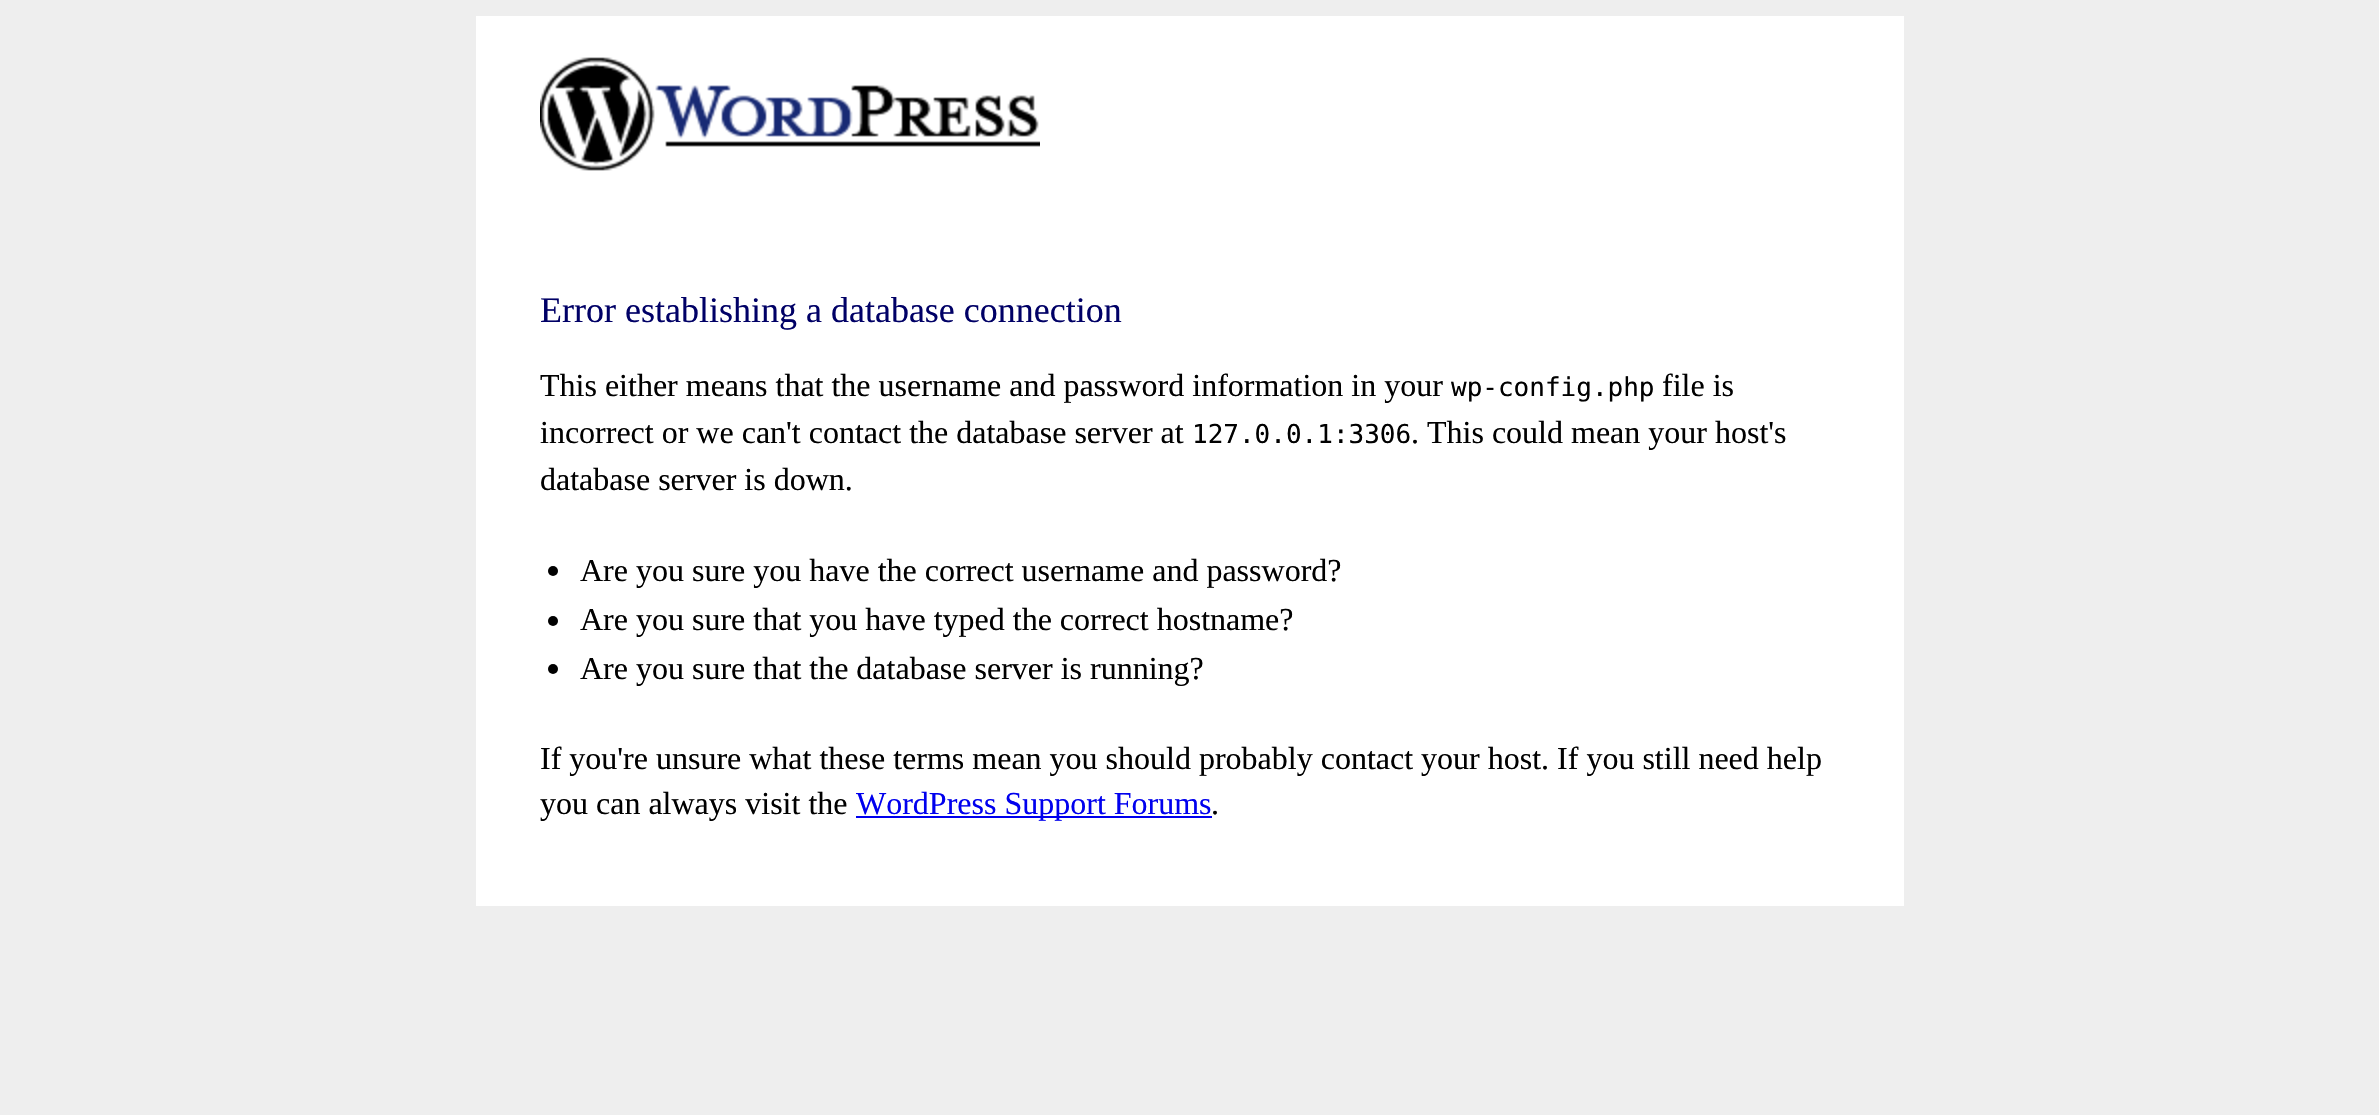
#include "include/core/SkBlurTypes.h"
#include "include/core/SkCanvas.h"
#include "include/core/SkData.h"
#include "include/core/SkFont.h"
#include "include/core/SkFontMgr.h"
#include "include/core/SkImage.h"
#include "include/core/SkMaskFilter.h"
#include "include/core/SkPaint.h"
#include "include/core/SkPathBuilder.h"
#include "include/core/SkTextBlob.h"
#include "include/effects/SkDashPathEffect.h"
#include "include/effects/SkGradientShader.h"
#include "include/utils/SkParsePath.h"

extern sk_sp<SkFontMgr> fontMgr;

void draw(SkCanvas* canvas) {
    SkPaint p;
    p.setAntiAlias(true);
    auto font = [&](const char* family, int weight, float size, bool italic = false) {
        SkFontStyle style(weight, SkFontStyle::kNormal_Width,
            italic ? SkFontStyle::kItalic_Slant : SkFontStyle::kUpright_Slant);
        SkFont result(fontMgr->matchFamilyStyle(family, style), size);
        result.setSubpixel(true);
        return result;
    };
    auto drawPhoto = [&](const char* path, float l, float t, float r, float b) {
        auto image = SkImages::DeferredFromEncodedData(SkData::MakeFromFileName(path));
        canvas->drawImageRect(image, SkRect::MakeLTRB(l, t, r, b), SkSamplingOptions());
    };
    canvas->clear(0xFFEEEEEE);
    p.setColor(0xFFFFFFFF);
    canvas->drawRect(SkRect::MakeLTRB(476, 16, 1904, 906), p);
    drawPhoto("media/1.png", 540, 57, 1040, 171);
    auto font1 = font("Liberation Serif", 400, 36);
    p.setColor(0xFF000066);
    canvas->drawString("Error establishing a database connection", 540, 322, font1, p);
    auto font2 = font("Liberation Serif", 400, 32);
    p.setColor(0xFF000000);
    canvas->drawString("This either means that the username and password information in your", 540, 396, font2, p);
    auto font3 = font("DejaVu Sans Mono", 400, 26);
    canvas->drawString("wp-config.php", 1451, 396, font3, p);
    canvas->drawString("file is", 1662, 396, font2, p);
    canvas->drawString("incorrect or we can't contact the database server at", 540, 443, font2, p);
    canvas->drawString("127.0.0.1:3306", 1192, 443, font3, p);
    canvas->drawString(". This could mean your host's", 1411, 443, font2, p);
    canvas->drawString("database server is down.", 540, 490, font2, p);
    canvas->drawCircle(553, 571, 5, p);
    canvas->drawString("Are you sure you have the correct username and password?", 580, 581, font2, p);
    canvas->drawCircle(553, 621, 5, p);
    canvas->drawString("Are you sure that you have typed the correct hostname?", 580, 630, font2, p);
    canvas->drawCircle(553, 669, 5, p);
    {
        const struct { const char* s; float x, y; } items[] = {
            {"Are you sure that the database server is running?", 580, 679},
            {"If you're unsure what these terms mean you should probably contact your host. If you still need help", 540, 769},
            {"you can always visit the", 540, 814},
        };
        for (auto [s, x, y] : items) {
            canvas->drawString(s, x, y, font2, p);
        }
    }
    p.setColor(0xFF0000EE);
    canvas->drawRect(SkRect::MakeLTRB(856, 816, 1212, 818), p);
    canvas->drawString("WordPress Support Forums", 856, 814, font2, p);
    p.setColor(0xFF000000);
    canvas->drawString(".", 1211, 814, font2, p);
}
